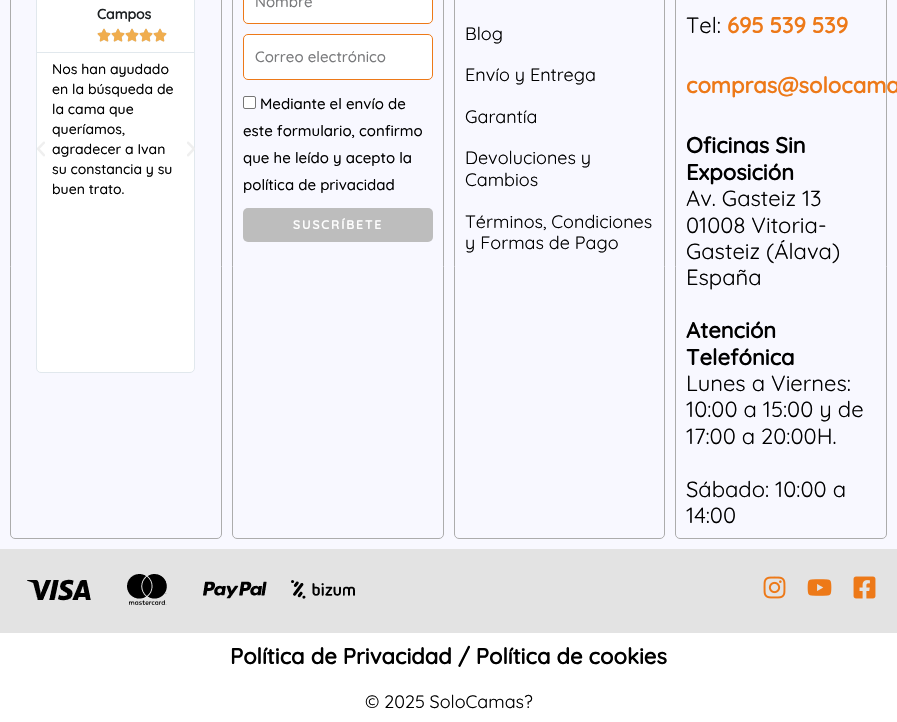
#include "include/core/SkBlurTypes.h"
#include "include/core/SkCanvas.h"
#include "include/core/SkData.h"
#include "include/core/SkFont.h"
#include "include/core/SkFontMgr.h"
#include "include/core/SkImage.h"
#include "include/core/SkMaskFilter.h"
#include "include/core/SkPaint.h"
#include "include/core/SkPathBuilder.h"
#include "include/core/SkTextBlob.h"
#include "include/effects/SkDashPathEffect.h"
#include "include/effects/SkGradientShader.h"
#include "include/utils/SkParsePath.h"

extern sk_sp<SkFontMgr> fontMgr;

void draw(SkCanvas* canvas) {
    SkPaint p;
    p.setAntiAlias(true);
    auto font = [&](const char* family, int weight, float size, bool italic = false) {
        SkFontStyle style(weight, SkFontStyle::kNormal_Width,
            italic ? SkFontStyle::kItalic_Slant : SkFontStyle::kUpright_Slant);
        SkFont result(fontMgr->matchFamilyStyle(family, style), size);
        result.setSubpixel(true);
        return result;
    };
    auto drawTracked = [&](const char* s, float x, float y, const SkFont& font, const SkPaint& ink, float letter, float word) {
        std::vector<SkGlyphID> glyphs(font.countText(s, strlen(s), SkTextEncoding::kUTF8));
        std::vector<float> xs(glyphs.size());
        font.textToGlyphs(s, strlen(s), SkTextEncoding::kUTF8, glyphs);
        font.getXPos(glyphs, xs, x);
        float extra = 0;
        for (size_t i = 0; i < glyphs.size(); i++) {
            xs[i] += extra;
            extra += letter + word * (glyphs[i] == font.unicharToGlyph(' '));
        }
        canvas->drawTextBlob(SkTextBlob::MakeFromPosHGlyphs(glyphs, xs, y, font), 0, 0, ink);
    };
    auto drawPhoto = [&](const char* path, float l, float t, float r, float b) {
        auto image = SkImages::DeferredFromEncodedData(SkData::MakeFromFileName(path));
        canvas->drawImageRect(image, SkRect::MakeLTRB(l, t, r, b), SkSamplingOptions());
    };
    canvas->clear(0xFFFFFFFF);
    p.setColor(0xFFF8F8FF);
    canvas->drawRect(SkRect::MakeLTRB(0, 0, 897, 549), p);
    p.setStyle(SkPaint::kStroke_Style);
    p.setStrokeWidth(1);
    p.setColor(0xFFACACAC);
    canvas->drawRoundRect(SkRect::MakeLTRB(10.5f, -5.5f, 221.5f, 538.5f), 4.5f, 4.5f, p);
    p.setStyle(SkPaint::kFill_Style);
    p.setColor(0xFFFFFFFF);
    canvas->drawRoundRect(SkRect::MakeLTRB(36.5f, -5.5f, 194.5f, 372.5f), 4.5f, 4.5f, p);
    p.setStyle(SkPaint::kStroke_Style);
    p.setColor(0xFFE1E8ED);
    canvas->drawRoundRect(SkRect::MakeLTRB(36.5f, -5.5f, 194.5f, 372.5f), 4.5f, 4.5f, p);
    drawPhoto("media/1.png", 37, 141, 45, 157);
    p.setStyle(SkPaint::kFill_Style);
    canvas->drawRect(SkRect::MakeLTRB(37, 52, 194, 53), p);
    auto font1 = font("Quicksand", 700, 14);
    p.setColor(0xFF1C2022);
    canvas->drawString("Campos", 97, 19, font1, p);
    drawPhoto("media/2.png", 97, 28, 111, 42);
    drawPhoto("media/3.png", 97, 28, 111, 42);
    drawPhoto("media/2.png", 111, 28, 125, 42);
    drawPhoto("media/3.png", 111, 28, 125, 42);
    drawPhoto("media/2.png", 125, 28, 139, 42);
    drawPhoto("media/3.png", 125, 28, 139, 42);
    drawPhoto("media/2.png", 139, 28, 153, 42);
    drawPhoto("media/3.png", 139, 28, 153, 42);
    drawPhoto("media/2.png", 153, 28, 167, 42);
    drawPhoto("media/3.png", 153, 28, 167, 42);
    auto font2 = font("Quicksand", 500, 14);
    p.setColor(0xFF000000);
    {
        const struct { const char* s; float x, y; } items[] = {
            {"Nos han ayudado", 52, 74},
            {"en la búsqueda de", 52, 94},
            {"la cama que", 52, 114},
            {"queríamos,", 52, 134},
            {"agradecer a Ivan", 52, 154},
            {"su constancia y su", 52, 174},
            {"buen trato.", 52, 194},
        };
        for (auto [s, x, y] : items) {
            canvas->drawString(s, x, y, font2, p);
        }
    }
    drawPhoto("media/4.png", 187, 141, 195, 157);
    p.setStyle(SkPaint::kStroke_Style);
    p.setColor(0xFFACACAC);
    canvas->drawRoundRect(SkRect::MakeLTRB(232.5f, -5.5f, 443.5f, 538.5f), 4.5f, 4.5f, p);
    p.setStyle(SkPaint::kFill_Style);
    p.setColor(0xFFFFFFFF);
    canvas->drawRoundRect(SkRect::MakeLTRB(243.5f, -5.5f, 432.5f, 23.5f), 4.5f, 4.5f, p);
    p.setStyle(SkPaint::kStroke_Style);
    p.setColor(0xFFED7918);
    canvas->drawRoundRect(SkRect::MakeLTRB(243.5f, -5.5f, 432.5f, 23.5f), 4.5f, 4.5f, p);
    auto font3 = font("Quicksand", 500, 15);
    p.setStyle(SkPaint::kFill_Style);
    p.setColor(0xFF797A7C);
    canvas->drawString("Nombre", 255, 7, font3, p);
    p.setColor(0xFFFFFFFF);
    canvas->drawRoundRect(SkRect::MakeLTRB(243.5f, 34.5f, 432.5f, 79.5f), 4.5f, 4.5f, p);
    p.setStyle(SkPaint::kStroke_Style);
    p.setColor(0xFFED7918);
    canvas->drawRoundRect(SkRect::MakeLTRB(243.5f, 34.5f, 432.5f, 79.5f), 4.5f, 4.5f, p);
    p.setStyle(SkPaint::kFill_Style);
    p.setColor(0xFF797A7C);
    canvas->drawString("Correo electrónico", 255, 62, font3, p);
    p.setColor(0xFFFFFFFF);
    canvas->drawRoundRect(SkRect::MakeLTRB(243.5f, 96.5f, 255.5f, 108.5f), 1.5f, 1.5f, p);
    p.setStyle(SkPaint::kStroke_Style);
    p.setColor(0xFF767676);
    canvas->drawRoundRect(SkRect::MakeLTRB(243.5f, 96.5f, 255.5f, 108.5f), 1.5f, 1.5f, p);
    p.setStyle(SkPaint::kFill_Style);
    p.setColor(0xFF000000);
    {
        const struct { const char* s; float x, y; } items[] = {
            {"Mediante el envío de", 260, 109},
            {"este formulario, confirmo", 243, 136},
            {"que he leído y acepto la", 243, 163},
            {"política de privacidad", 243, 190},
        };
        for (auto [s, x, y] : items) {
            canvas->drawString(s, x, y, font3, p);
        }
    }
    p.setColor(0xFFBDBDBD);
    canvas->drawRoundRect(SkRect::MakeLTRB(243, 208, 433, 242), 5, 5, p);
    auto font4 = font("Quicksand", 700, 12);
    p.setColor(0xFFFFFFFF);
    drawTracked("SUSCRÍBETE", 293, 229, font4, p, 2, 0);
    p.setStyle(SkPaint::kStroke_Style);
    p.setColor(0xFFACACAC);
    canvas->drawRoundRect(SkRect::MakeLTRB(454.5f, -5.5f, 664.5f, 538.5f), 4.5f, 4.5f, p);
    auto font5 = font("Quicksand", 400, 18);
    p.setStyle(SkPaint::kFill_Style);
    p.setColor(0xFF000000);
    {
        const struct { const char* s; float x, y; } items[] = {
            {"Blog", 465, 40},
            {"Envío y Entrega", 465, 81},
            {"Garantía", 465, 123},
            {"Devoluciones y", 465, 164},
            {"Cambios", 465, 186},
            {"Términos, Condiciones", 465, 228},
            {"y Formas de Pago", 465, 249},
        };
        for (auto [s, x, y] : items) {
            canvas->drawString(s, x, y, font5, p);
        }
    }
    p.setStyle(SkPaint::kStroke_Style);
    p.setColor(0xFFACACAC);
    canvas->drawRoundRect(SkRect::MakeLTRB(675.5f, -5.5f, 886.5f, 538.5f), 4.5f, 4.5f, p);
    auto font6 = font("Quicksand", 400, 22);
    p.setStyle(SkPaint::kFill_Style);
    p.setColor(0xFF000000);
    canvas->drawString("Tel:", 686, 33, font6, p);
    auto font7 = font("Quicksand", 700, 22);
    p.setColor(0xFFED7918);
    canvas->drawString("695 539 539", 727, 33, font7, p);
    canvas->drawString("compras@solocama", 686, 93, font7, p);
    p.setColor(0xFF000000);
    canvas->drawString("Oficinas Sin", 686, 153, font7, p);
    canvas->drawString("Exposición", 686, 180, font7, p);
    {
        const struct { const char* s; float x, y; } items[] = {
            {"Av. Gasteiz 13", 686, 206},
            {"01008 Vitoria-", 686, 233},
            {"Gasteiz (Álava)", 686, 259},
            {"España", 686, 285},
        };
        for (auto [s, x, y] : items) {
            canvas->drawString(s, x, y, font6, p);
        }
    }
    canvas->drawString("Atención", 686, 338, font7, p);
    canvas->drawString("Telefónica", 686, 365, font7, p);
    {
        const struct { const char* s; float x, y; } items[] = {
            {"Lunes a Viernes:", 686, 391},
            {"10:00 a 15:00 y de", 686, 417},
            {"17:00 a 20:00H.", 686, 444},
            {"Sábado: 10:00 a", 686, 497},
            {"14:00", 686, 523},
        };
        for (auto [s, x, y] : items) {
            canvas->drawString(s, x, y, font6, p);
        }
    }
    p.setColor(0xFFE3E3E3);
    canvas->drawRect(SkRect::MakeLTRB(0, 549, 897, 633), p);
    drawPhoto("media/5.png", 27, 574, 355, 605);
    drawPhoto("media/6.png", 763, 576, 786, 599);
    drawPhoto("media/7.png", 807, 579, 832, 596);
    drawPhoto("media/8.png", 853, 576, 876, 599);
    p.setColor(0xFF000000);
    canvas->drawString("Política de Privacidad / Política de cookies", 230, 664, font7, p);
    canvas->drawString("© 2025 SoloCamas?", 365, 708, font5, p);
}
